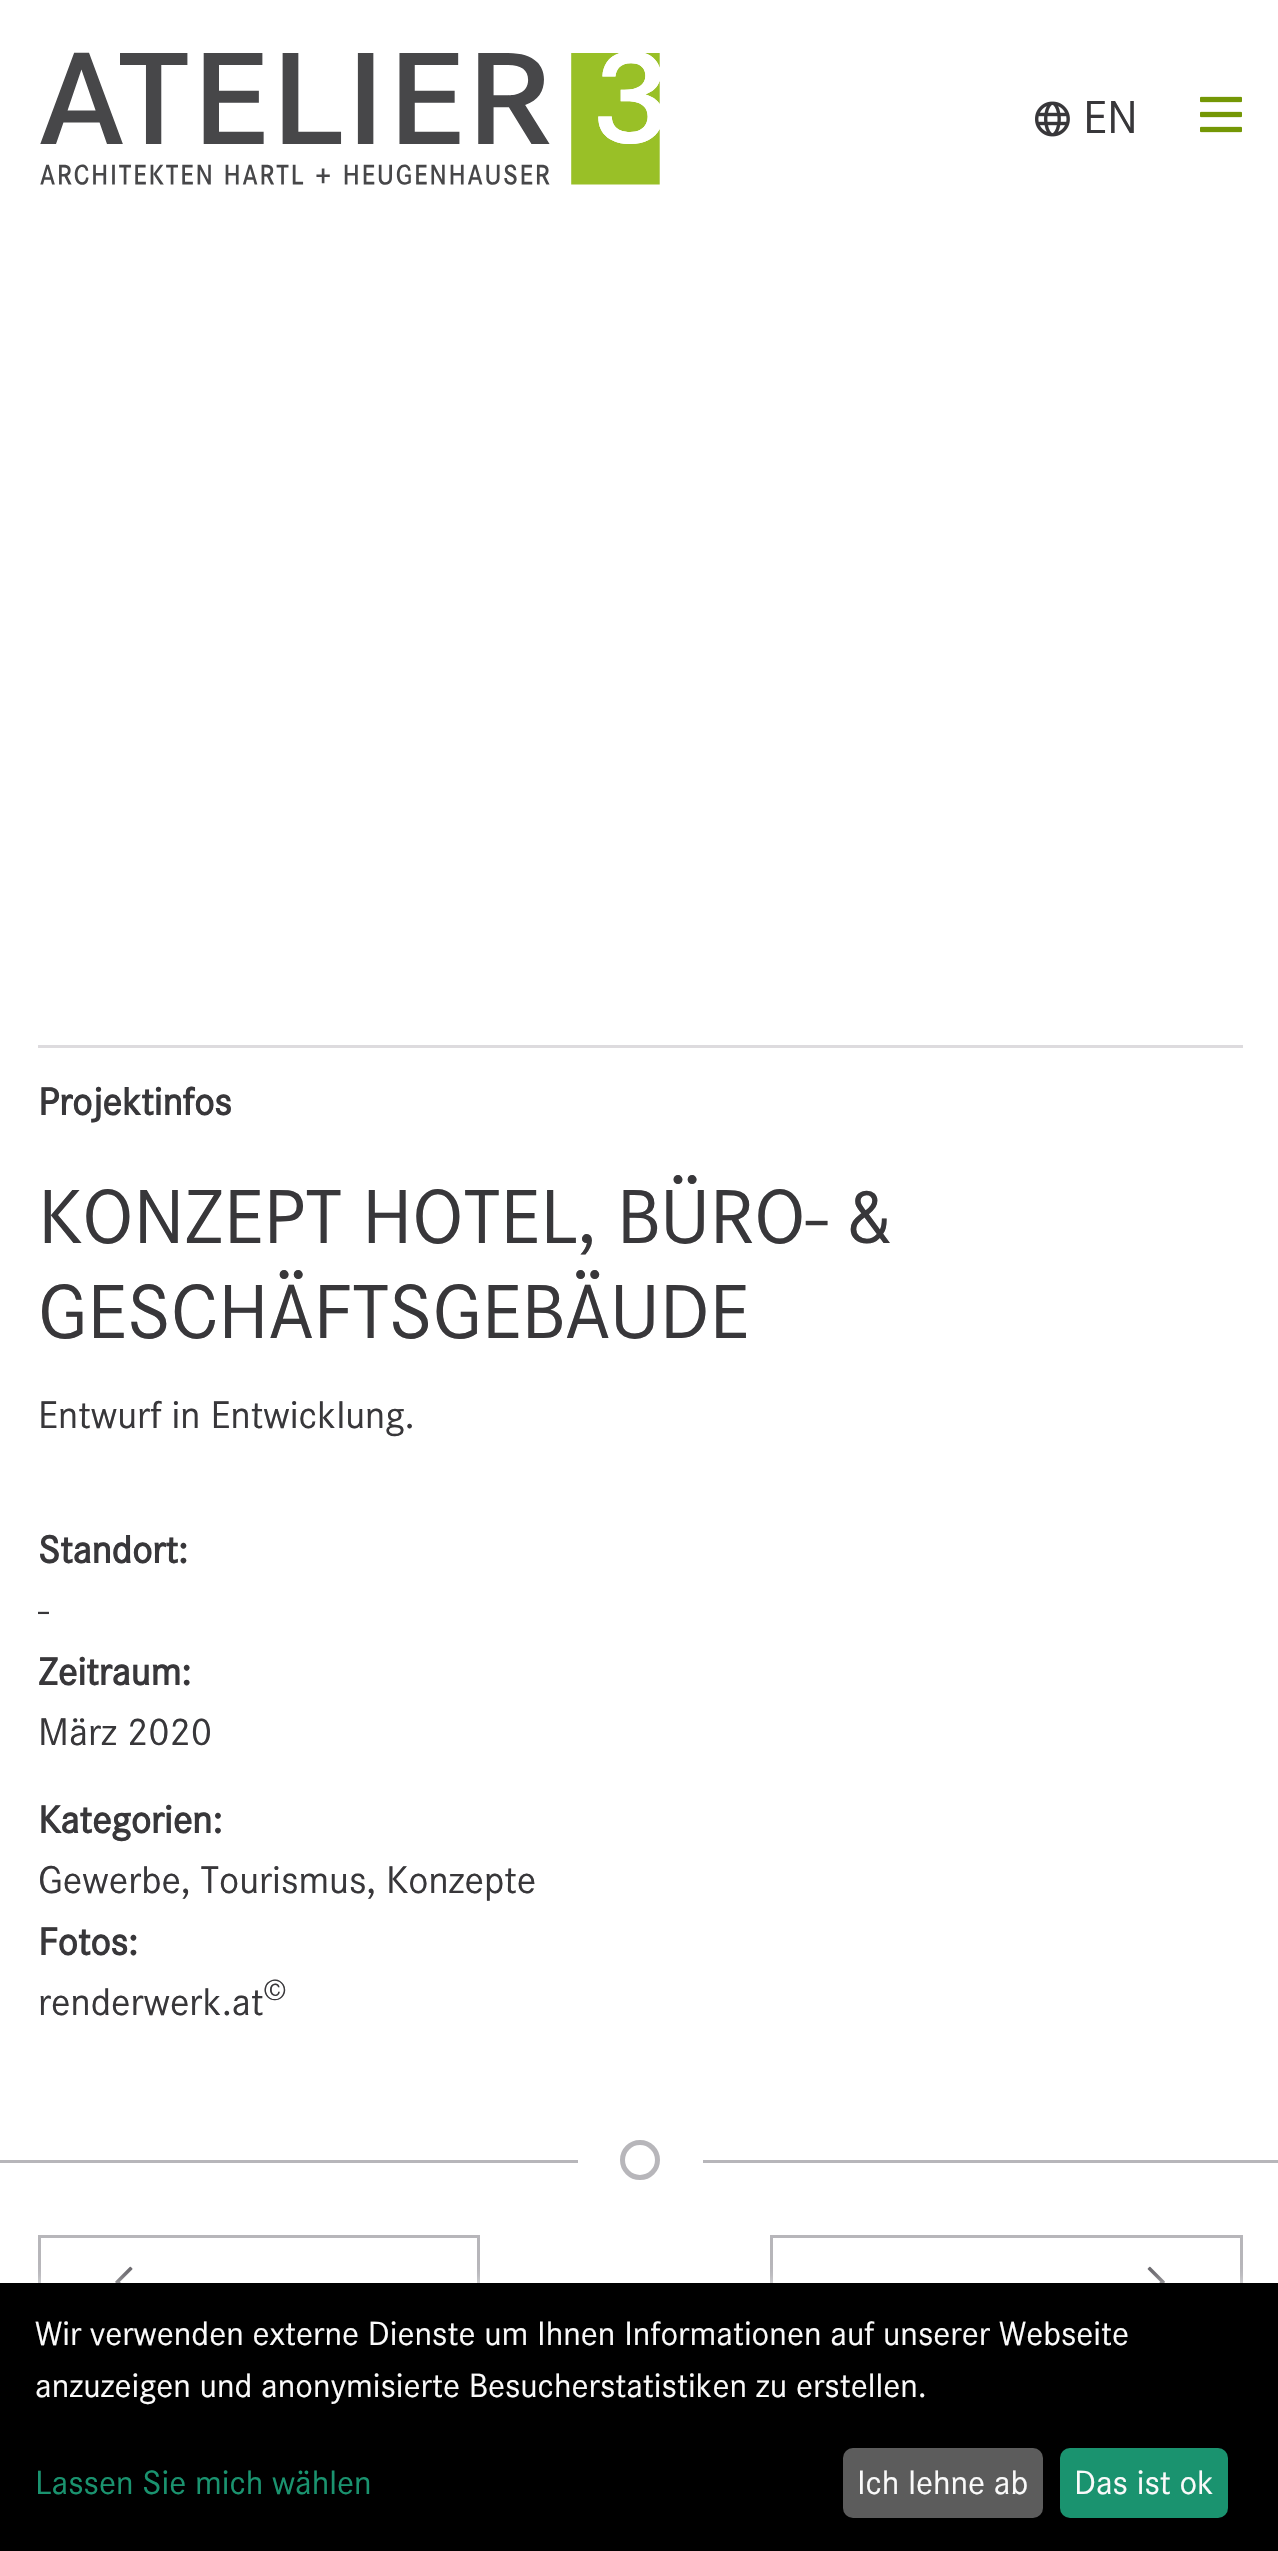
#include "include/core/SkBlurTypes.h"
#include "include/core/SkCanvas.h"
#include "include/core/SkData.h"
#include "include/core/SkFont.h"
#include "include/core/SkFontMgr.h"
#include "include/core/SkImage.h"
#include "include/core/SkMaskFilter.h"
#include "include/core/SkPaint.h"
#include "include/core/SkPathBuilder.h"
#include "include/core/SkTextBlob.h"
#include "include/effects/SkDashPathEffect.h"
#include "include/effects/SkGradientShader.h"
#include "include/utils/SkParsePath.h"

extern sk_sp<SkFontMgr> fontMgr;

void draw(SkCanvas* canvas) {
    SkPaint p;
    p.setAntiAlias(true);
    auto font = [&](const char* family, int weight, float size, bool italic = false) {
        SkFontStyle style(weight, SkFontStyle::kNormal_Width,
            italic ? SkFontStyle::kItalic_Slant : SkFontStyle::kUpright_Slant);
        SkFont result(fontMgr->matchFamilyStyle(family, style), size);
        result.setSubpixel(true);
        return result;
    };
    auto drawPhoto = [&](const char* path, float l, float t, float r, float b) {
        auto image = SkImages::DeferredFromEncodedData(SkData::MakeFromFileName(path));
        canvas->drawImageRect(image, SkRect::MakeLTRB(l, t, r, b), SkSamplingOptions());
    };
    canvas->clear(0xFFFFFFFF);
    drawPhoto("media/1.png", 40, 52, 660, 185);
    drawPhoto("media/2.png", 1035, 101, 1070, 137);
    auto font1 = font("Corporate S", 400, 48);
    p.setColor(0xFF38373A);
    canvas->drawString("EN", 1083, 133, font1, p);
    drawPhoto("media/3.png", 1200, 96, 1242, 133);
    p.setColor(0xFFDDDBDE);
    canvas->drawRect(SkRect::MakeLTRB(38, 1045, 1243, 1048), p);
    auto font2 = font("Corporate S", 700, 40);
    p.setColor(0xFF38373A);
    canvas->drawString("Projektinfos", 38, 1115, font2, p);
    auto font3 = font("Corporate S", 400, 79.4f);
    canvas->drawString("KONZEPT HOTEL, BÜRO- &", 38, 1243, font3, p);
    canvas->drawString("GESCHÄFTSGEBÄUDE", 38, 1338, font3, p);
    auto font4 = font("Corporate S", 400, 40);
    canvas->drawString("Entwurf in Entwicklung.", 38, 1428, font4, p);
    canvas->drawString("Standort:", 38, 1563, font2, p);
    canvas->drawString("-", 38, 1623, font4, p);
    canvas->drawString("Zeitraum:", 38, 1685, font2, p);
    canvas->drawString("März 2020", 38, 1745, font4, p);
    canvas->drawString("Kategorien:", 38, 1833, font2, p);
    canvas->drawString("Gewerbe, Tourismus, Konzepte", 38, 1893, font4, p);
    canvas->drawString("Fotos:", 38, 1955, font2, p);
    canvas->drawString("renderwerk.at", 38, 2015, font4, p);
    auto font5 = font("Corporate S", 400, 30);
    canvas->drawString("©", 263, 2000, font5, p);
    p.setStyle(SkPaint::kStroke_Style);
    p.setStrokeWidth(5);
    p.setColor(0xFFB7B6BA);
    canvas->drawCircle(640, 2160, 17.5f, p);
    p.setStyle(SkPaint::kFill_Style);
    canvas->drawRect(SkRect::MakeLTRB(0, 2160, 578, 2163), p);
    canvas->drawRect(SkRect::MakeLTRB(703, 2160, 1278, 2163), p);
    p.setStyle(SkPaint::kStroke_Style);
    p.setStrokeWidth(3);
    canvas->drawRect(SkRect::MakeLTRB(39.5f, 2236.5f, 478.5f, 2333.5f), p);
    drawPhoto("media/4.png", 115, 2266, 133, 2283);
    canvas->drawRect(SkRect::MakeLTRB(771.5f, 2236.5f, 1241.5f, 2333.5f), p);
    drawPhoto("media/5.png", 1147, 2266, 1165, 2283);
    p.setStyle(SkPaint::kFill_Style);
    p.setColor(0x99FFFFFF);
    p.setMaskFilter(SkMaskFilter::MakeBlur(kNormal_SkBlurStyle, 7.5f));
    canvas->drawRect(SkRect::MakeLTRB(0, 2283, 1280, 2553), p);
    p.setMaskFilter(nullptr);
    p.setColor(0xFF000000);
    canvas->drawRect(SkRect::MakeLTRB(0, 2283, 1278, 2551), p);
    auto font6 = font("Corporate S", 400, 35);
    p.setColor(0xFFFAFAFA);
    canvas->drawString("Wir verwenden externe Dienste um Ihnen Informationen auf unserer Webseite", 35, 2345, font6, p);
    canvas->drawString("anzuzeigen und anonymisierte Besucherstatistiken zu erstellen.", 35, 2397, font6, p);
    p.setColor(0xFF1A936F);
    canvas->drawString("Lassen Sie mich wählen", 35, 2494, font6, p);
    p.setColor(0xFF5C5C5C);
    canvas->drawRoundRect(SkRect::MakeLTRB(843, 2448, 1043, 2518), 10, 10, p);
    p.setColor(0xFFFAFAFA);
    canvas->drawString("Ich lehne ab", 857, 2494, font6, p);
    p.setColor(0xFF1A936F);
    canvas->drawRoundRect(SkRect::MakeLTRB(1060, 2448, 1228, 2518), 10, 10, p);
    p.setColor(0xFFFAFAFA);
    canvas->drawString("Das ist ok", 1074, 2494, font6, p);
}
